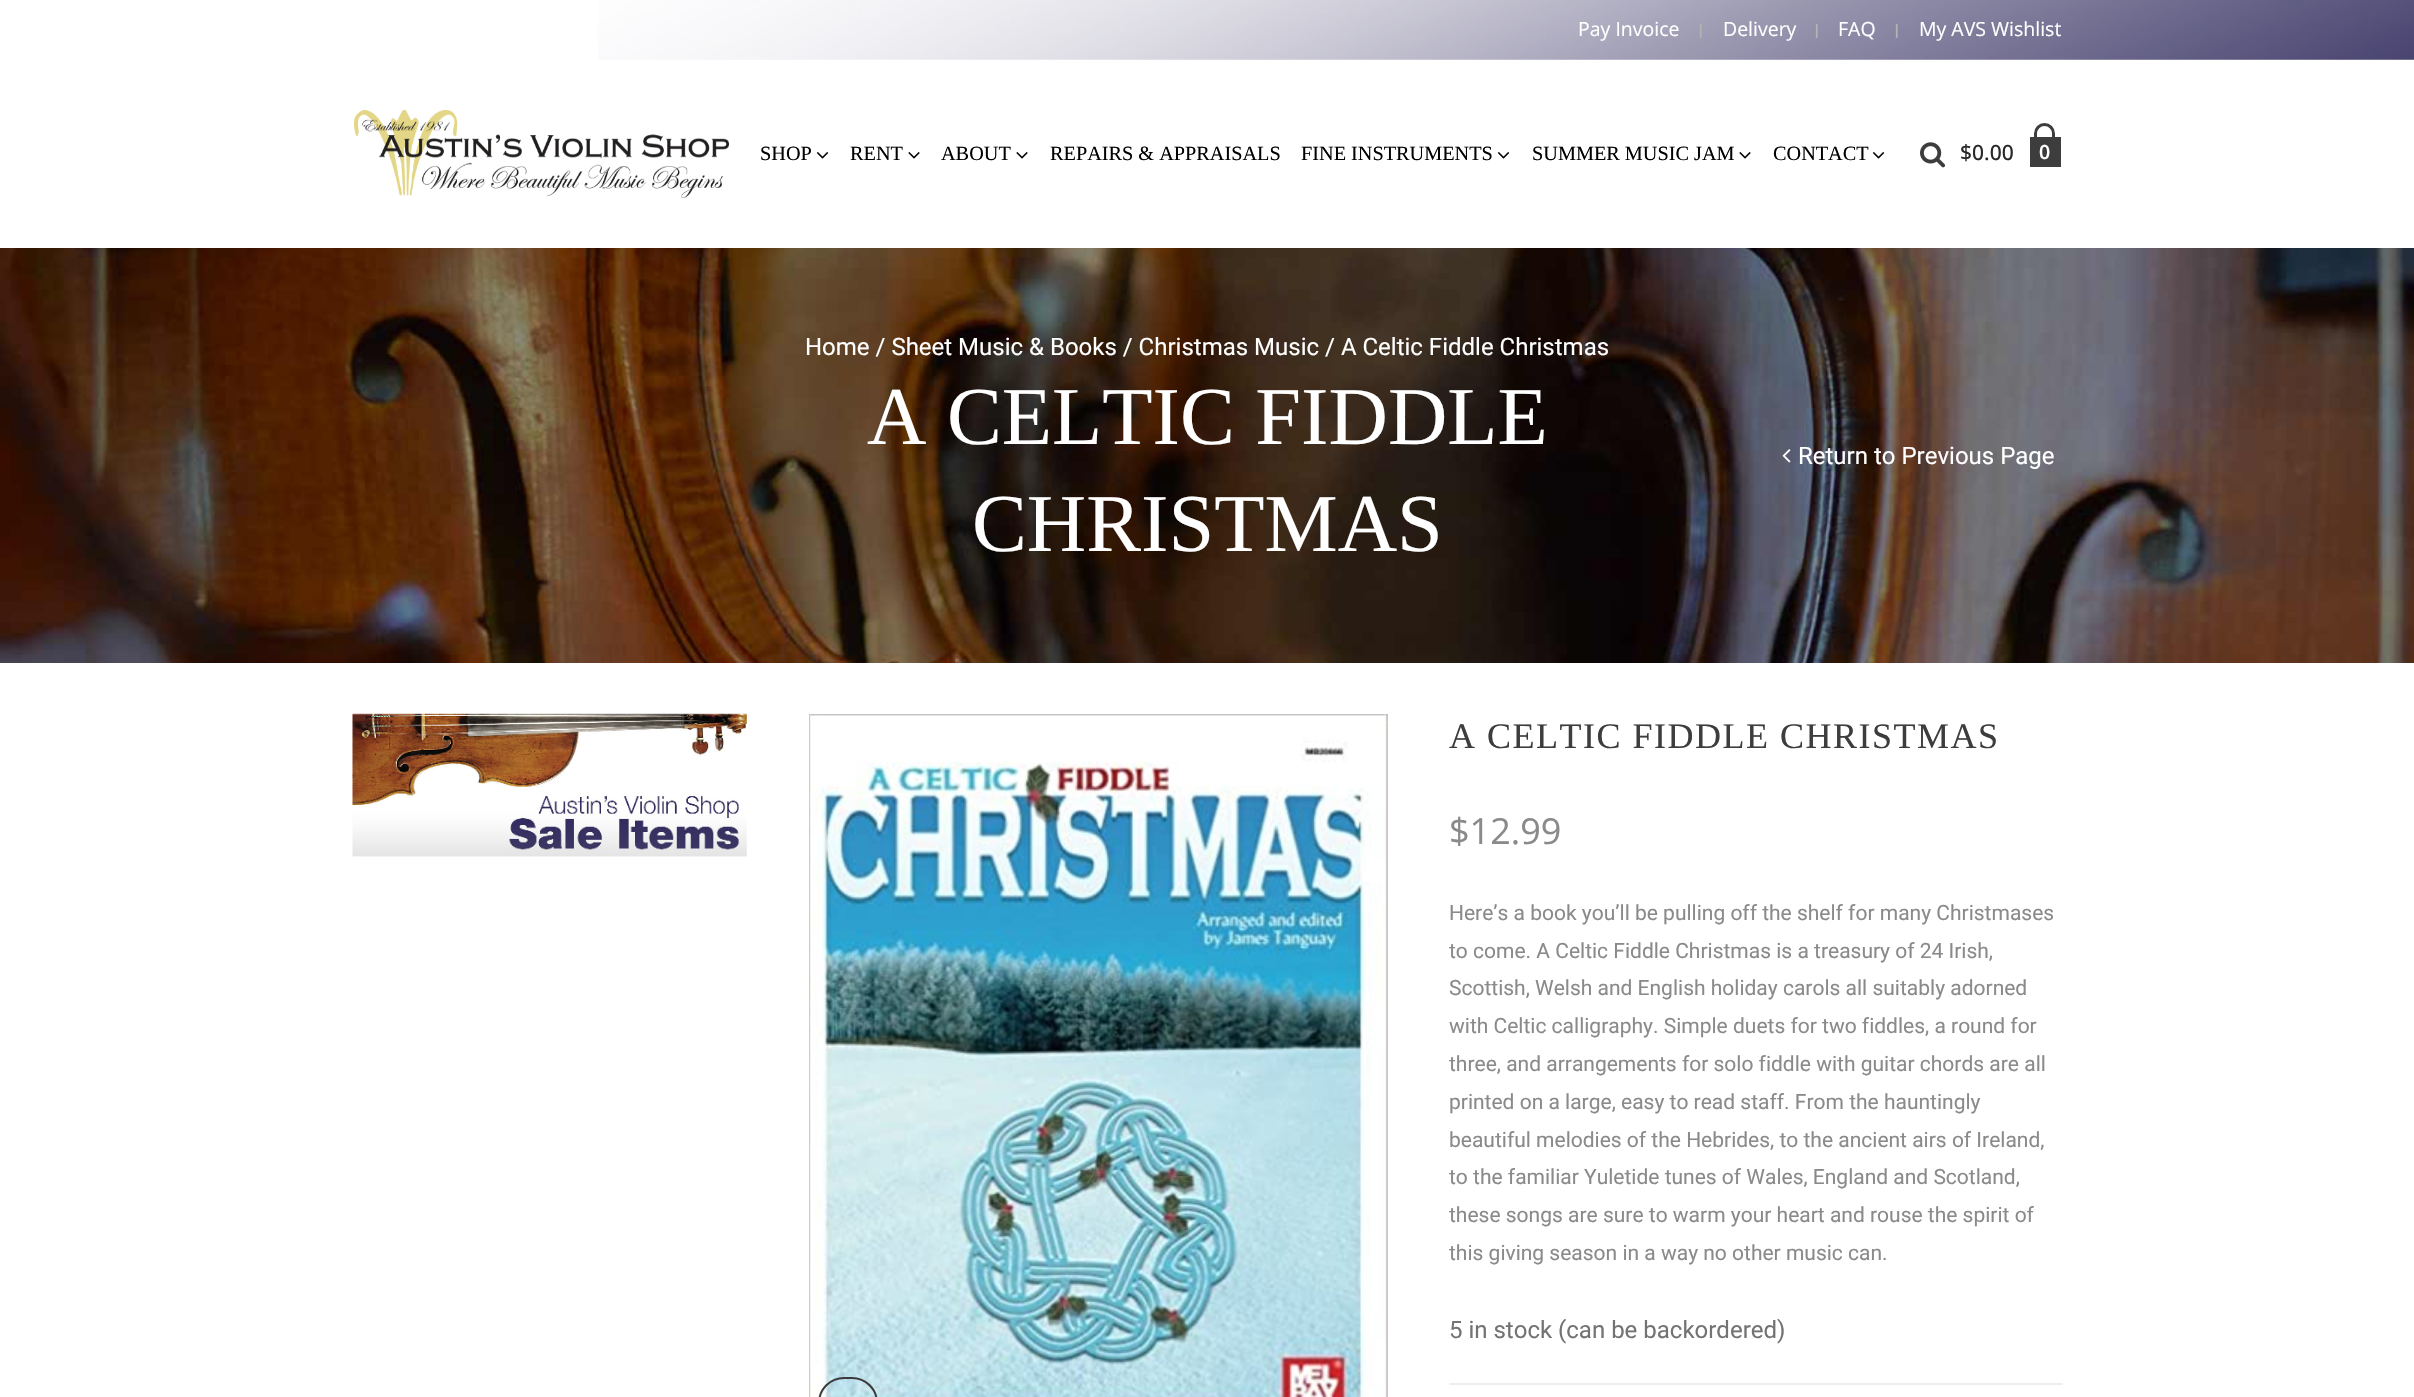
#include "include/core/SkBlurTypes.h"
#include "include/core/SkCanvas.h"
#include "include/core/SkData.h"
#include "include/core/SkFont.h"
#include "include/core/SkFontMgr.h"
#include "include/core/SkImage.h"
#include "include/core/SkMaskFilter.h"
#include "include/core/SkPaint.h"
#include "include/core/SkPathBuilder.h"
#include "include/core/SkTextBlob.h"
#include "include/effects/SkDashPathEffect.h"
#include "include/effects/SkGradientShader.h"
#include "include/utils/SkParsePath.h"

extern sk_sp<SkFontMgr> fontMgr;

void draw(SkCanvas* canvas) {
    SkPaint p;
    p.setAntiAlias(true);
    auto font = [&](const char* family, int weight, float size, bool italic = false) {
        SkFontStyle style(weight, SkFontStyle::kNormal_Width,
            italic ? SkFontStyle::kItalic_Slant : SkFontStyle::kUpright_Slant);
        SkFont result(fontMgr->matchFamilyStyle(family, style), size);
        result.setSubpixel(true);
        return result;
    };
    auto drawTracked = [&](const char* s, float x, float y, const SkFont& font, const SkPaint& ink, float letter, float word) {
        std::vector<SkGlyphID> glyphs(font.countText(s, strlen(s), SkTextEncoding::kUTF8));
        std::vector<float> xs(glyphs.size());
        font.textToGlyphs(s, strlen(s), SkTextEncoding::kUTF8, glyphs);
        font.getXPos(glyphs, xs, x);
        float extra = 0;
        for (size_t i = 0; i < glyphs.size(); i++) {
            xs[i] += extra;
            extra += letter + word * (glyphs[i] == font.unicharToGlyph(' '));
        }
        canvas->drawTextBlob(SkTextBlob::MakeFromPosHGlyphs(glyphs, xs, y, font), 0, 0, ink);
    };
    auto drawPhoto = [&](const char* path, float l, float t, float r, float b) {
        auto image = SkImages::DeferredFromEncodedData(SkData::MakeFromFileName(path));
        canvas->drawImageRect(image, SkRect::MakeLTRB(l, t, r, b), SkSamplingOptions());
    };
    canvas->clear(0xFFFFFFFF);
    drawPhoto("media/1.png", 598, 0, 2414, 60);
    auto font1 = font("Open Sans", 400, 19.5f);
    p.setColor(0xFFFFFFFF);
    canvas->drawString("Pay Invoice", 1578, 36, font1, p);
    p.setColor(0xFFB3B3B3);
    canvas->drawString("I", 1698, 38, font1, p);
    p.setColor(0xFFFFFFFF);
    canvas->drawString("Delivery", 1723, 36, font1, p);
    p.setColor(0xFFB3B3B3);
    canvas->drawString("I", 1814, 38, font1, p);
    p.setColor(0xFFFFFFFF);
    canvas->drawString("FAQ", 1838, 36, font1, p);
    p.setColor(0xFFB3B3B3);
    canvas->drawString("I", 1894, 38, font1, p);
    p.setColor(0xFFFFFFFF);
    canvas->drawString("My AVS Wishlist", 1919, 36, font1, p);
    drawPhoto("media/2.png", 354, 110, 729, 198);
    auto font2 = font("Liberation Serif", 400, 20.25f);
    p.setColor(0xFF000000);
    canvas->drawString("SHOP", 760, 160, font2, p);
    drawPhoto("media/3.png", 816, 152, 829, 159);
    canvas->drawString("RENT", 850, 160, font2, p);
    drawPhoto("media/4.png", 908, 152, 920, 159);
    canvas->drawString("ABOUT", 941, 160, font2, p);
    drawPhoto("media/4.png", 1016, 152, 1028, 159);
    canvas->drawString("REPAIRS & APPRAISALS", 1050, 160, font2, p);
    canvas->drawString("FINE INSTRUMENTS", 1301, 160, font2, p);
    drawPhoto("media/3.png", 1497, 152, 1510, 159);
    canvas->drawString("SUMMER MUSIC JAM", 1532, 160, font2, p);
    drawPhoto("media/4.png", 1739, 152, 1751, 159);
    canvas->drawString("CONTACT", 1773, 160, font2, p);
    drawPhoto("media/3.png", 1872, 152, 1885, 159);
    drawPhoto("media/5.png", 1920, 142, 1946, 168);
    auto font3 = font("Open Sans", 500, 21);
    p.setColor(0xFF292929);
    canvas->drawString("$0.00", 1960, 160, font3, p);
    p.setStyle(SkPaint::kStroke_Style);
    p.setStrokeWidth(3);
    p.setColor(0xFF3D3D3D);
    canvas->drawRoundRect(SkRect::MakeLTRB(2035.5f, 124.5f, 2053.5f, 160.5f), 9, 9, p);
    canvas->drawRect(SkRect::MakeLTRB(2031.5f, 138.5f, 2059.5f, 165.5f), p);
    p.setStyle(SkPaint::kFill_Style);
    canvas->drawRect(SkRect::MakeLTRB(2033, 140, 2058, 164), p);
    auto font4 = font("Open Sans", 600, 19.5f);
    p.setColor(0xFFFFFFFF);
    canvas->drawString("0", 2039, 159, font4, p);
    drawPhoto("media/6.png", 0, 248, 2414, 663);
    auto font5 = font("Roboto", 400, 24);
    canvas->drawString("Home / Sheet Music & Books / Christmas Music / A Celtic Fiddle Christmas", 805, 355, font5, p);
    auto font6 = font("Liberation Serif", 400, 82.25f);
    canvas->drawString("A CELTIC FIDDLE", 867, 444, font6, p);
    canvas->drawString("CHRISTMAS", 972, 551, font6, p);
    drawPhoto("media/7.png", 1782, 449, 1791, 463);
    canvas->drawString("Return to Previous Page", 1798, 464, font5, p);
    drawPhoto("media/8.png", 352, 713, 747, 857);
    drawPhoto("media/9.png", 809, 714, 1388, 1397);
    p.setStyle(SkPaint::kStroke_Style);
    p.setStrokeWidth(2);
    p.setColor(0xFF3A3A3A);
    canvas->drawRoundRect(SkRect::MakeLTRB(819, 1378, 877, 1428), 29, 29, p);
    auto font7 = font("Liberation Serif", 400, 36);
    p.setStyle(SkPaint::kFill_Style);
    p.setColor(0xFF3D3D3D);
    drawTracked("A CELTIC FIDDLE CHRISTMAS", 1449, 748, font7, p, 1.5f, 0);
    auto font8 = font("Open Sans", 400, 36);
    p.setColor(0xFF8A8A8A);
    canvas->drawString("$12.99", 1449, 844, font8, p);
    auto font9 = font("Roboto", 400, 21);
    {
        const struct { const char* s; float x, y; } items[] = {
            {"Here’s a book you’ll be pulling off the shelf for many Christmases", 1449, 920},
            {"to come. A Celtic Fiddle Christmas is a treasury of 24 Irish,", 1449, 958},
            {"Scottish, Welsh and English holiday carols all suitably adorned", 1449, 995},
            {"with Celtic calligraphy. Simple duets for two fiddles, a round for", 1449, 1033},
            {"three, and arrangements for solo fiddle with guitar chords are all", 1449, 1071},
            {"printed on a large, easy to read staff. From the hauntingly", 1449, 1109},
            {"beautiful melodies of the Hebrides, to the ancient airs of Ireland,", 1449, 1147},
            {"to the familiar Yuletide tunes of Wales, England and Scotland,", 1449, 1184},
            {"these songs are sure to warm your heart and rouse the spirit of", 1449, 1222},
            {"this giving season in a way no other music can.", 1449, 1260},
        };
        for (auto [s, x, y] : items) {
            canvas->drawString(s, x, y, font9, p);
        }
    }
    p.setColor(0xFF737373);
    canvas->drawString("5 in stock (can be backordered)", 1449, 1338, font5, p);
    p.setColor(0xFFEEEEEE);
    canvas->drawRect(SkRect::MakeLTRB(1449, 1383, 2063, 1385), p);
}
